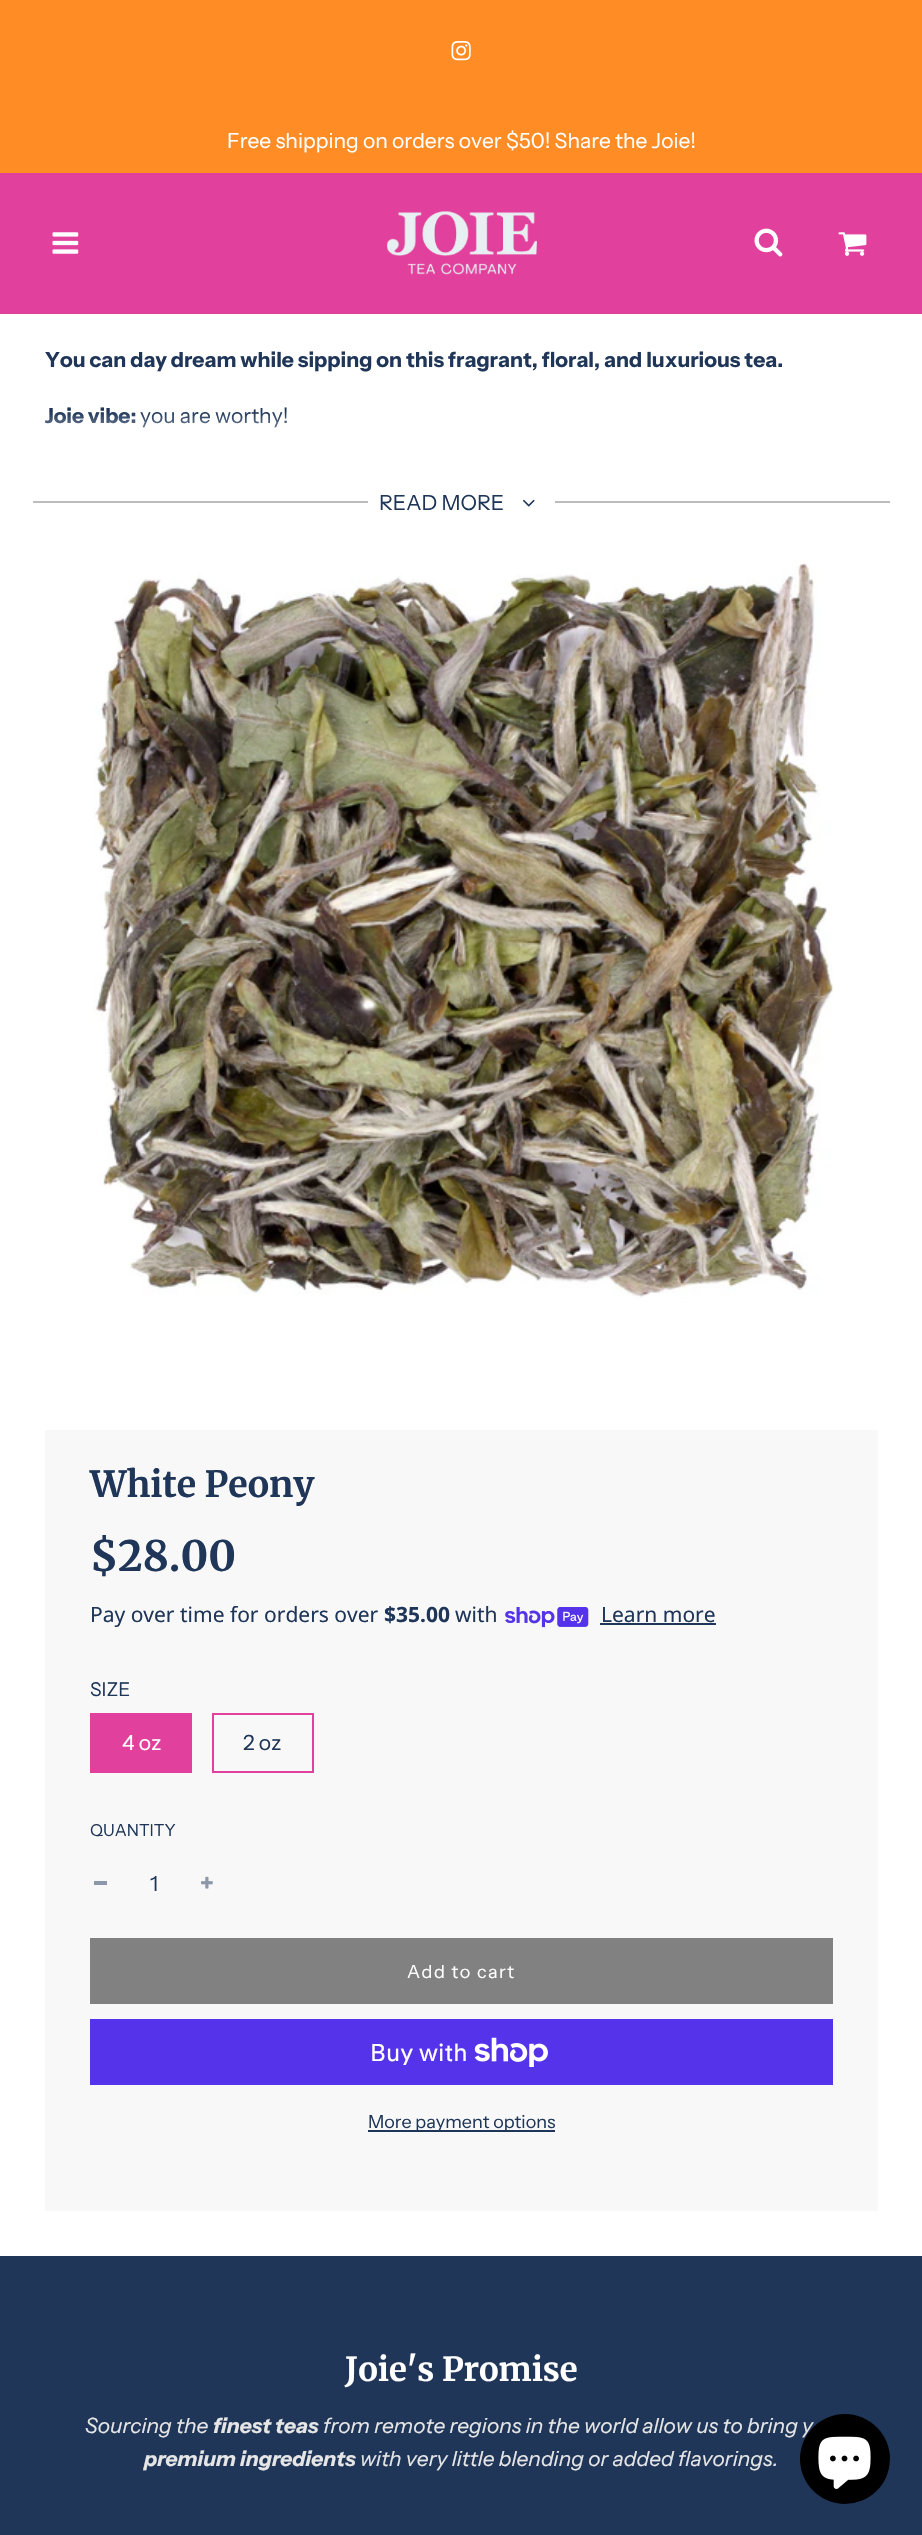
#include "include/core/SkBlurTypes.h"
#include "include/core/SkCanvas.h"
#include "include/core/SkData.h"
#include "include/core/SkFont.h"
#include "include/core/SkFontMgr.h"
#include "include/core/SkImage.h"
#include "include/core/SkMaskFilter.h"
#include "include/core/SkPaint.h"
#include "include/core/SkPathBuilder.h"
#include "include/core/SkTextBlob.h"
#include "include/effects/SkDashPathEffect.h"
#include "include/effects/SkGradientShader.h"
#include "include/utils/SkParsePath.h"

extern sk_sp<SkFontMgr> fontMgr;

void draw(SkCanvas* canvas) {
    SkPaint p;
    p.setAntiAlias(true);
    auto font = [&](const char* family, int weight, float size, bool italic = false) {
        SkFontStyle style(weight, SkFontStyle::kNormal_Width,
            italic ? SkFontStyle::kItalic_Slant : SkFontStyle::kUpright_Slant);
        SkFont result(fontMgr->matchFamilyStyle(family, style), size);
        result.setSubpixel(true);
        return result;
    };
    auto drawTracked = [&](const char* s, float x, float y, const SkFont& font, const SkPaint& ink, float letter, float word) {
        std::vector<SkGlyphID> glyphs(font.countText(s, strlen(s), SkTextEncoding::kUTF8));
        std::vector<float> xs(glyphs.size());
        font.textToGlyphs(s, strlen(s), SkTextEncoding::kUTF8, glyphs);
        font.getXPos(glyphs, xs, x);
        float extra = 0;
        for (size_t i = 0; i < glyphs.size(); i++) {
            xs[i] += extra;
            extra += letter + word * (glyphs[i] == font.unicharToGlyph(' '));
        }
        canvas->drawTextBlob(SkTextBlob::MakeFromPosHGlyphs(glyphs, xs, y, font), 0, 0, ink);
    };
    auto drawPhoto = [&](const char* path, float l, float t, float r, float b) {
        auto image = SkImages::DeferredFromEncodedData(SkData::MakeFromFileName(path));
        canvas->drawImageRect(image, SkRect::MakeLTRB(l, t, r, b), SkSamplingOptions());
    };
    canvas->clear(0xFFFFFFFF);
    p.setColor(0xFFFF8C24);
    canvas->drawRect(SkRect::MakeLTRB(0, 0, 922, 173), p);
    drawPhoto("media/1.png", 451, 41, 471, 61);
    auto font1 = font("Instrument Sans", 400, 21);
    p.setColor(0xFFFFFFFF);
    canvas->drawString("Free shipping on orders over $50! Share the Joie!", 227, 148, font1, p);
    p.setColor(0xFFE2409D);
    canvas->drawRect(SkRect::MakeLTRB(0, 173, 922, 314), p);
    drawPhoto("media/2.png", 52, 232, 79, 254);
    drawPhoto("media/3.png", 387, 211, 537, 275);
    drawPhoto("media/4.png", 754, 228, 783, 257);
    drawPhoto("media/5.png", 838, 232, 867, 256);
    auto font2 = font("Instrument Sans", 700, 21);
    p.setColor(0xFF1F3659);
    canvas->drawString("You can day dream while sipping on this fragrant, floral, and luxurious tea.", 45, 367, font2, p);
    canvas->drawString("Joie vibe:", 45, 423, font2, p);
    canvas->drawString("you are worthy!", 140, 423, font1, p);
    {
        const SkColor colors[] = {0x00FFFFFF, 0xFFFFFFFF};
        const float stops[] = {0.65f, 1};
        const SkPoint ends[] = {{461, 313}, {461, 464}};
        p.setShader(SkGradientShader::MakeLinear(ends, colors, stops, 2, SkTileMode::kClamp));
        p.setAlpha(255);
    }
    canvas->drawRect(SkRect::MakeLTRB(45, 412, 287, 428), p);
    p.setShader(nullptr);
    p.setColor(0xFFBCBCBC);
    canvas->drawRect(SkRect::MakeLTRB(33, 501, 368, 503), p);
    p.setColor(0xFF1F3659);
    canvas->drawString("READ MORE", 379, 510, font1, p);
    drawPhoto("media/6.png", 523, 499, 535, 507);
    p.setColor(0xFFBCBCBC);
    canvas->drawRect(SkRect::MakeLTRB(555, 501, 890, 503), p);
    drawPhoto("media/7.png", 93, 563, 834, 1298);
    p.setColor(0xFFF8F8F8);
    canvas->drawRect(SkRect::MakeLTRB(45, 1430, 878, 2211), p);
    auto font3 = font("Merriweather", 700, 36);
    p.setColor(0xFF1F3659);
    canvas->drawString("White Peony", 90, 1497, font3, p);
    auto font4 = font("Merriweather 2", 700, 42);
    canvas->drawString("$28.00", 90, 1571, font4, p);
    auto font5 = font("Noto Sans", 400, 21);
    canvas->drawString("Pay over time for orders over", 90, 1622, font5, p);
    auto font6 = font("Noto Sans", 700, 21);
    canvas->drawString("$35.00", 384, 1622, font6, p);
    canvas->drawString("with", 455, 1622, font5, p);
    drawPhoto("media/8.png", 505, 1607, 589, 1628);
    canvas->drawString("Learn more", 601, 1622, font5, p);
    canvas->drawRect(SkRect::MakeLTRB(600, 1623, 716, 1625), p);
    auto font7 = font("Instrument Sans", 400, 19);
    canvas->drawString("SIZE", 90, 1696, font7, p);
    p.setColor(0xFFE2409D);
    canvas->drawRect(SkRect::MakeLTRB(90, 1713, 192, 1773), p);
    p.setColor(0xFFFFFFFF);
    canvas->drawString("4 oz", 122, 1750, font1, p);
    p.setStyle(SkPaint::kStroke_Style);
    p.setStrokeWidth(2);
    p.setColor(0xFFE2409D);
    canvas->drawRect(SkRect::MakeLTRB(213, 1714, 313, 1772), p);
    p.setStyle(SkPaint::kFill_Style);
    p.setColor(0xFF1F3659);
    canvas->drawString("2 oz", 243, 1750, font1, p);
    auto font8 = font("Instrument Sans", 400, 16.5f);
    canvas->drawString("QUANTITY", 90, 1836, font8, p);
    p.setColor(0xFF8C97A9);
    canvas->drawRect(SkRect::MakeLTRB(94, 1881, 107, 1885), p);
    p.setColor(0xFF1F3659);
    canvas->drawString("1", 150, 1891, font1, p);
    drawPhoto("media/9.png", 201, 1876, 213, 1889);
    p.setColor(0xFF818181);
    canvas->drawRect(SkRect::MakeLTRB(90, 1938, 833, 2004), p);
    auto font9 = font("Instrument Sans", 400, 18);
    p.setColor(0xFFFFFFFF);
    drawTracked("Add to cart", 407, 1978, font9, p, 1.5f, 0);
    p.setColor(0xFF5433EB);
    canvas->drawRect(SkRect::MakeLTRB(90, 2019, 833, 2085), p);
    auto font10 = font("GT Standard", 400, 24);
    p.setColor(0xFFFFFFFF);
    canvas->drawString("Buy with", 370, 2061, font10, p);
    drawPhoto("media/10.png", 474, 2037, 548, 2067);
    p.setColor(0xFF1F3659);
    canvas->drawRect(SkRect::MakeLTRB(368, 2130, 555, 2132), p);
    canvas->drawString("More payment options", 368, 2128, font9, p);
    canvas->drawRect(SkRect::MakeLTRB(0, 2256, 922, 2535), p);
    auto font11 = font("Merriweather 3", 700, 33);
    p.setColor(0xFFFFFFFF);
    canvas->drawString("Joie's Promise", 345, 2381, font11, p);
    auto font12 = font("Instrument Sans", 400, 21, true);
    p.setColor(0xFFE6E6E6);
    canvas->drawString("Sourcing the", 85, 2433, font12, p);
    auto font13 = font("Instrument Sans", 700, 21, true);
    canvas->drawString("finest teas", 213, 2433, font13, p);
    canvas->drawString("from remote regions in the world allow us to bring y", 323, 2433, font12, p);
    canvas->drawString("premium ingredients", 144, 2466, font13, p);
    canvas->drawString("with very little blending or added flavorings.", 360, 2466, font12, p);
    p.setColor(0xFF000000);
    canvas->drawCircle(845, 2459, 45, p);
    drawPhoto("media/11.png", 818, 2436, 871, 2489);
}
